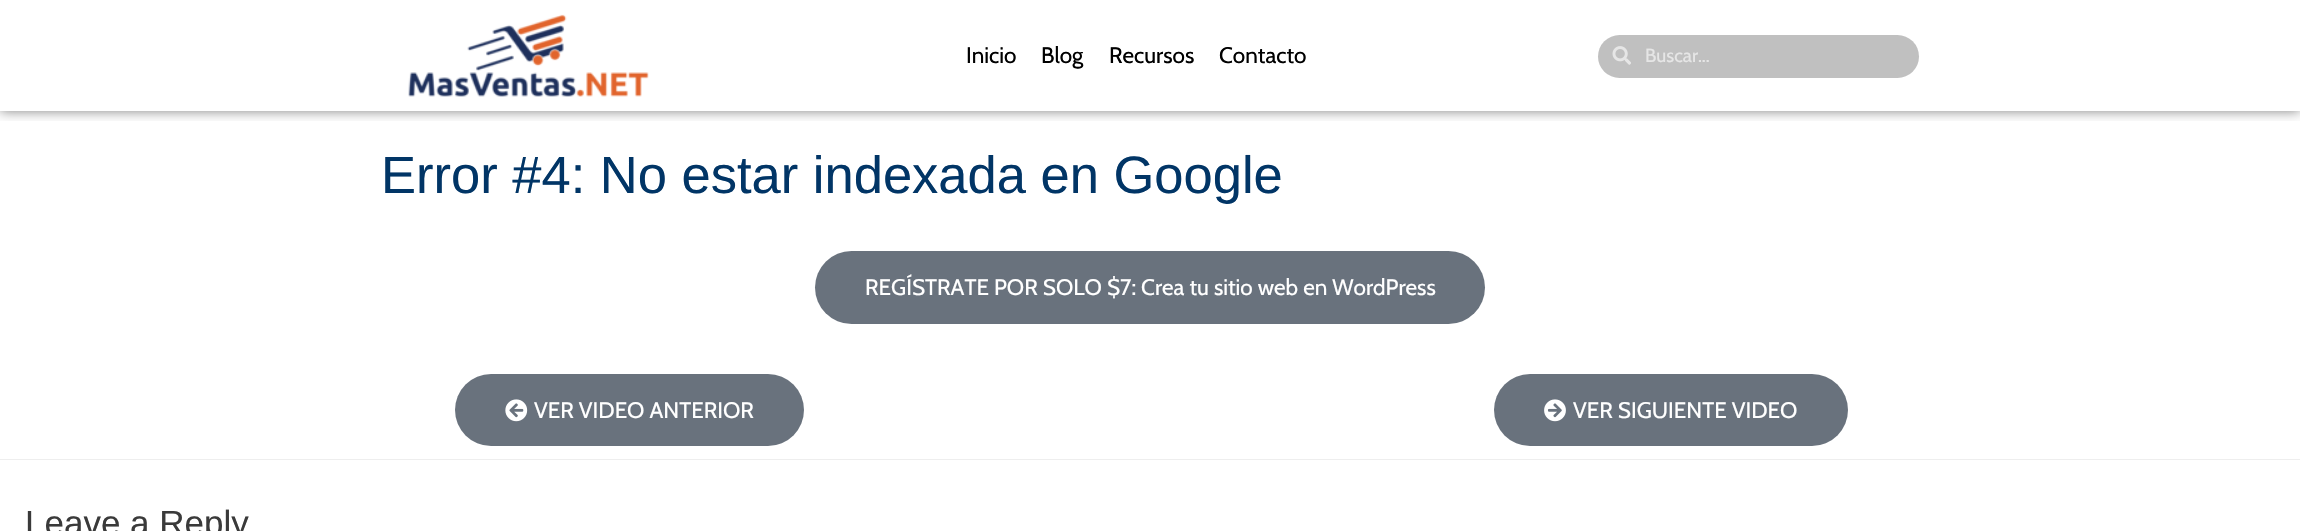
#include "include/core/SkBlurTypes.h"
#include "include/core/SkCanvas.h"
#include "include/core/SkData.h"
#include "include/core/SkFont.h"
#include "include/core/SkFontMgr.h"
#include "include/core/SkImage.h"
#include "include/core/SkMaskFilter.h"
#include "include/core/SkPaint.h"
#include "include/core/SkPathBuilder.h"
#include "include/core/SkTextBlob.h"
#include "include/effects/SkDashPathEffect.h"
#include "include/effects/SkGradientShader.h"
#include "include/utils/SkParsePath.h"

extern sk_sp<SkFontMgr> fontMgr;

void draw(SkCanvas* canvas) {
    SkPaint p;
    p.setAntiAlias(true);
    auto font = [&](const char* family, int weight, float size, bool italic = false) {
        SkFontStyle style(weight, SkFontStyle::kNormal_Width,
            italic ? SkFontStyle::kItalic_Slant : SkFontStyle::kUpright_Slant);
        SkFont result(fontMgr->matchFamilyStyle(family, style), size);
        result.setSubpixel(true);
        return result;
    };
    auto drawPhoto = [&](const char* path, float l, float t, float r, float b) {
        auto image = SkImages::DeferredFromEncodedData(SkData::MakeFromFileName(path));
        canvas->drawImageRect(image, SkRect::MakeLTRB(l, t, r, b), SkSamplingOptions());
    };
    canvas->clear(0xFFFFFFFF);
    canvas->save();
    canvas->clipRect(SkRect::MakeLTRB(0, 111, 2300, 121));
    p.setColor(0x80000000);
    p.setMaskFilter(SkMaskFilter::MakeBlur(kNormal_SkBlurStyle, 6));
    canvas->drawRect(SkRect::MakeLTRB(0, 0, 2300, 111), p);
    p.setMaskFilter(nullptr);
    canvas->restore();
    drawPhoto("media/1.png", 408, 14, 649, 97);
    auto font1 = font("Cabin", 400, 22.5f);
    p.setColor(0xFF000000);
    {
        const struct { const char* s; float x, y; } items[] = {
            {"Inicio", 966, 63},
            {"Blog", 1041, 63},
            {"Recursos", 1109, 63},
            {"Contacto", 1219, 63},
        };
        for (auto [s, x, y] : items) {
            canvas->drawString(s, x, y, font1, p);
        }
    }
    p.setColor(0xFFC0C0C0);
    canvas->drawRoundRect(SkRect::MakeLTRB(1598, 35, 1919, 78), 21.5f, 21.5f, p);
    drawPhoto("media/2.png", 1612, 46, 1631, 65);
    auto font2 = font("Cabin", 400, 19);
    p.setColor(0xFFE6E6E6);
    canvas->drawString("Buscar...", 1645, 62, font2, p);
    auto font3 = font("Liberation Sans", 400, 52.5f);
    p.setColor(0xFF013566);
    canvas->drawString("Error #4: No estar indexada en Google", 381, 193, font3, p);
    p.setColor(0xFF69727D);
    canvas->drawRoundRect(SkRect::MakeLTRB(815, 251, 1485, 324), 36.5f, 36.5f, p);
    p.setColor(0xFFFFFFFF);
    canvas->drawString("REGÍSTRATE POR SOLO $7: Crea tu sitio web en WordPress", 865, 295, font1, p);
    p.setColor(0xFF69727D);
    canvas->drawRoundRect(SkRect::MakeLTRB(455, 374, 804, 446), 36, 36, p);
    drawPhoto("media/3.png", 505, 399, 528, 422);
    p.setColor(0xFFFFFFFF);
    canvas->drawString("VER VIDEO ANTERIOR", 534, 418, font1, p);
    p.setColor(0xFF69727D);
    canvas->drawRoundRect(SkRect::MakeLTRB(1494, 374, 1848, 446), 36, 36, p);
    drawPhoto("media/4.png", 1544, 399, 1566, 422);
    p.setColor(0xFFFFFFFF);
    canvas->drawString("VER SIGUIENTE VIDEO", 1573, 418, font1, p);
    p.setColor(0xFFEEEEEE);
    canvas->drawRect(SkRect::MakeLTRB(0, 459, 2300, 460), p);
    auto font4 = font("Liberation Sans", 400, 35);
    p.setColor(0xFF3A3A3A);
    canvas->drawString("Leave a Reply", 25, 535, font4, p);
}
